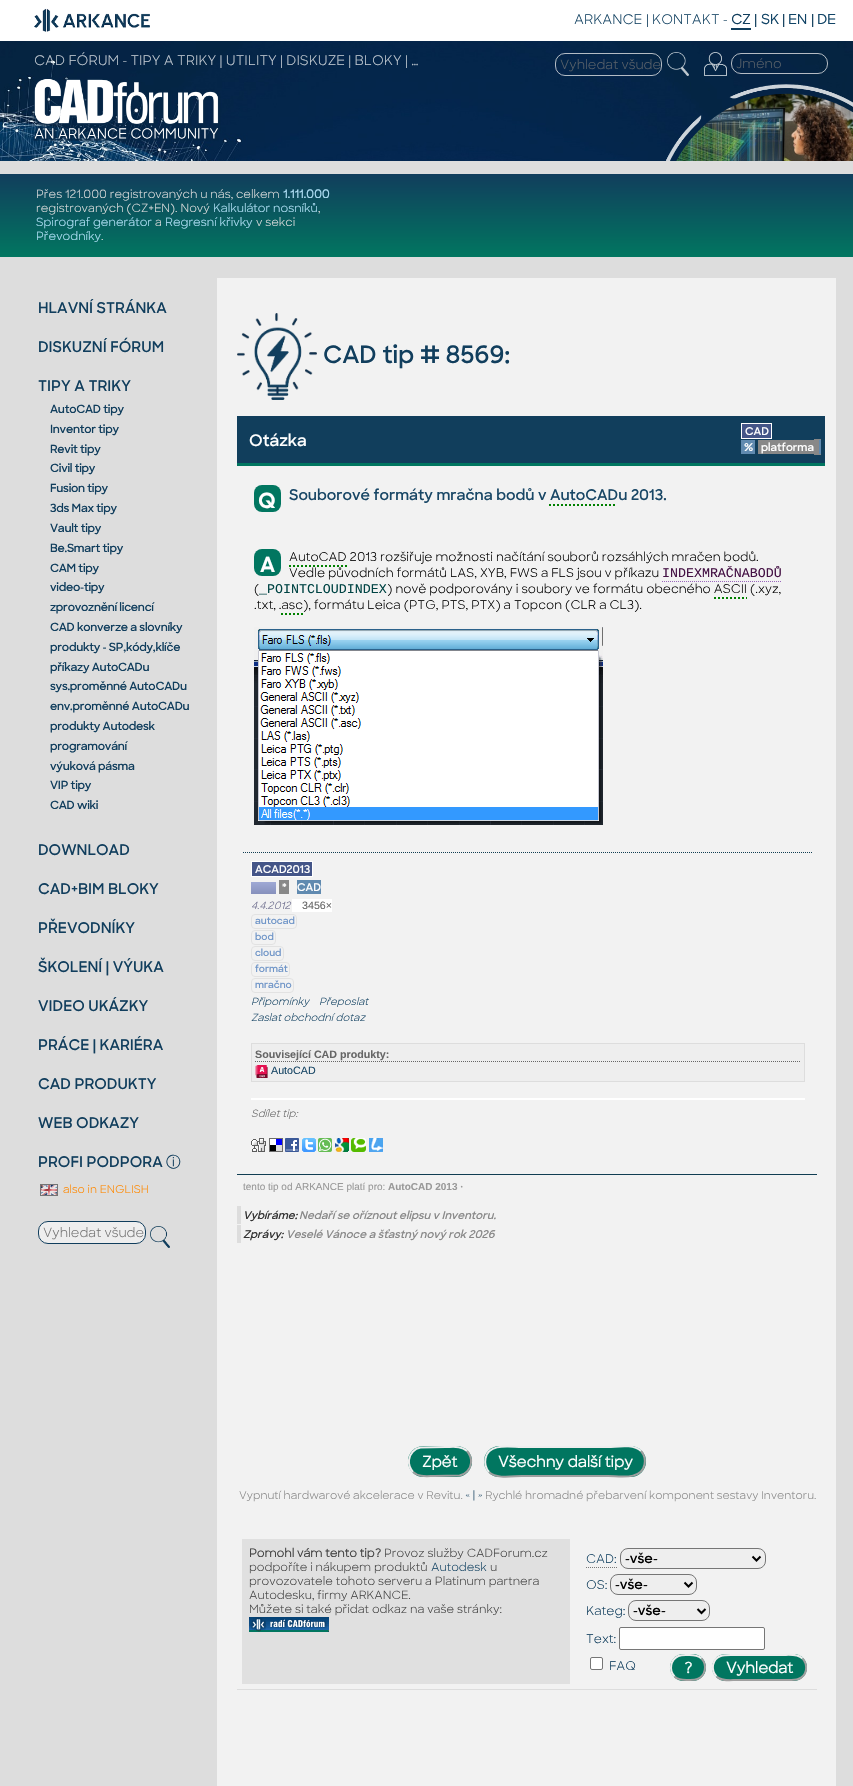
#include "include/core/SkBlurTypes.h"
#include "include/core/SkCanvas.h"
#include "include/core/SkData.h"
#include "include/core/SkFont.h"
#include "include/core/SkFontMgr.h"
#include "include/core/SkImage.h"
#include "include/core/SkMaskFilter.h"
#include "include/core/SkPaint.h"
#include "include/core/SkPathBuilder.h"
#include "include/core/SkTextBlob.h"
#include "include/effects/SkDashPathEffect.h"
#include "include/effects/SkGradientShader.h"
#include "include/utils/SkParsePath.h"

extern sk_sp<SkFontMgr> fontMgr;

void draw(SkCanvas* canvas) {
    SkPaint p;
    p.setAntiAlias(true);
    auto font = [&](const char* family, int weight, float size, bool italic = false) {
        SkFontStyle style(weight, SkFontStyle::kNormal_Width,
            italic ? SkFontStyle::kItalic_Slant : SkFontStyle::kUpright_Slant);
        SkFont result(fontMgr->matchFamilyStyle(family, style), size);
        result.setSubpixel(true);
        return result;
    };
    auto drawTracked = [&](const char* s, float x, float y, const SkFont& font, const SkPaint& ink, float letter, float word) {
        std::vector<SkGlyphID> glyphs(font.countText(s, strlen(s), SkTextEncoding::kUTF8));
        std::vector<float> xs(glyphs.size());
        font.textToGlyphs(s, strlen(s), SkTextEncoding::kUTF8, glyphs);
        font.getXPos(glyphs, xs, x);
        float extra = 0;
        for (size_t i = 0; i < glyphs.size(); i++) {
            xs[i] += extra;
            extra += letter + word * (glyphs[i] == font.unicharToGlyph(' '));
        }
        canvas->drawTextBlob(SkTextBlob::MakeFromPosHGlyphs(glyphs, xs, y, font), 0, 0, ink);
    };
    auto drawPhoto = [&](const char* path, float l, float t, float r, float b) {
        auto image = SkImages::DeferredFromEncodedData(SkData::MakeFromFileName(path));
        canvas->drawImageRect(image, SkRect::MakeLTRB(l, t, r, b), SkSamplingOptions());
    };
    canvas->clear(0xFFFFFFFF);
    drawPhoto("media/1.png", 34, 8, 150, 32);
    auto font1 = font("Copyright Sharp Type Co", 400, 13.3f);
    p.setColor(0xFF194766);
    canvas->drawString("ARKANCE", 574, 24, font1, p);
    p.setColor(0xFF113E5D);
    canvas->drawString("|", 646, 24, font1, p);
    p.setColor(0xFF194766);
    canvas->drawString("KONTAKT", 652, 24, font1, p);
    p.setColor(0xFF113E5D);
    canvas->drawString("-", 723, 24, font1, p);
    auto font2 = font("Copyright Sharp Type Co", 700, 13.3f);
    canvas->drawString("CZ |", 731, 24, font2, p);
    p.setColor(0xFF113E5C);
    canvas->drawRect(SkRect::MakeLTRB(731, 28, 751, 30), p);
    p.setColor(0xFF114466);
    canvas->drawString("SK", 761, 24, font2, p);
    p.setColor(0xFF113E5D);
    canvas->drawString("|", 782, 24, font2, p);
    p.setColor(0xFF114466);
    canvas->drawString("EN", 788, 24, font2, p);
    p.setColor(0xFF113E5D);
    canvas->drawString("|", 811, 24, font2, p);
    p.setColor(0xFF114466);
    canvas->drawString("DE", 817, 24, font2, p);
    drawPhoto("media/2.png", 0, 41, 853, 161);
    p.setColor(0xFFC1C9D1);
    canvas->drawString("CAD FÓRUM - TIPY A TRIKY | UTILITY | DISKUZE | BLOKY | …", 34, 65, font1, p);
    p.setStyle(SkPaint::kStroke_Style);
    p.setStrokeWidth(1);
    p.setColor(0xBFEEEEEE);
    canvas->drawRoundRect(SkRect::MakeLTRB(555.5f, 53.5f, 661.5f, 75.5f), 9.5f, 9.5f, p);
    auto font3 = font("Copyright Sharp Type Co", 400, 12.75f);
    p.setStyle(SkPaint::kFill_Style);
    p.setColor(0xFF596169);
    canvas->drawString("Vyhledat všude", 560, 69, font3, p);
    drawPhoto("media/3.png", 667, 52, 689, 76);
    drawPhoto("media/4.png", 704, 52, 727, 76);
    p.setStyle(SkPaint::kStroke_Style);
    p.setColor(0xBFEEEEEE);
    canvas->drawRoundRect(SkRect::MakeLTRB(731.5f, 53.5f, 827.5f, 73.5f), 9.5f, 9.5f, p);
    p.setStyle(SkPaint::kFill_Style);
    p.setColor(0xFF596169);
    canvas->drawString("Jméno", 736, 68, font3, p);
    drawPhoto("media/5.png", 33, 77, 221, 141);
    drawPhoto("media/6.png", 666, 84, 853, 161);
    drawPhoto("media/7.png", 676, 93, 853, 161);
    p.setColor(0xFFDDDDDD);
    canvas->drawRect(SkRect::MakeLTRB(0, 161, 853, 174), p);
    {
        const SkColor colors[] = {0xFF113E5D, 0xFF017660};
        const float stops[] = {0, 1};
        const SkPoint ends[] = {{427, 174}, {427, 257}};
        p.setShader(SkGradientShader::MakeLinear(ends, colors, stops, 2, SkTileMode::kClamp));
        p.setAlpha(255);
    }
    canvas->drawRect(SkRect::MakeLTRB(0, 174, 853, 257), p);
    auto font4 = font("Copyright Sharp Type Co", 400, 11.3f);
    p.setShader(nullptr);
    p.setColor(0xFFDDDDDD);
    canvas->drawString("Přes 121.000 registrovaných u nás, celkem", 36, 198, font4, p);
    auto font5 = font("Copyright Sharp Type Co", 700, 11.3f);
    p.setColor(0xFFB0E0F6);
    canvas->drawString("1.111.000", 283, 198, font5, p);
    p.setColor(0xFFDDDDDD);
    canvas->drawString("registrovaných (CZ+EN). Nový", 36, 212, font4, p);
    p.setColor(0xFFB0E0F6);
    canvas->drawString("Kalkulátor nosníků", 213, 212, font4, p);
    p.setColor(0xFFDDDDDD);
    canvas->drawString(",", 318, 212, font4, p);
    p.setColor(0xFFB0E0F6);
    canvas->drawString("Spirograf generátor", 36, 226, font4, p);
    p.setColor(0xFFDDDDDD);
    canvas->drawString("a", 155, 226, font4, p);
    p.setColor(0xFFB0E0F6);
    canvas->drawString("Regresní křivky", 165, 226, font4, p);
    p.setColor(0xFFDDDDDD);
    canvas->drawString("v sekci", 256, 226, font4, p);
    p.setColor(0xFFB0E0F6);
    canvas->drawString("Převodníky", 36, 240, font4, p);
    p.setColor(0xFFDDDDDD);
    canvas->drawString(".", 101, 240, font4, p);
    canvas->drawRect(SkRect::MakeLTRB(0, 257, 853, 1786), p);
    auto font6 = font("Copyright Sharp Type Co", 600, 14.7f);
    p.setColor(0xFF113E5D);
    {
        const struct { const char* s; float x, y; } items[] = {
            {"HLAVNÍ STRÁNKA", 38, 313},
            {"DISKUZNÍ FÓRUM", 38, 352},
            {"TIPY A TRIKY", 38, 391},
        };
        for (auto [s, x, y] : items) {
            canvas->drawString(s, x, y, font6, p);
        }
    }
    auto font7 = font("Copyright Sharp Type Co", 600, 11.3f);
    {
        const struct { const char* s; float x, y; } items[] = {
            {"AutoCAD tipy", 50, 413},
            {"Inventor tipy", 50, 433},
            {"Revit tipy", 50, 453},
            {"Civil tipy", 50, 472},
            {"Fusion tipy", 50, 492},
            {"3ds Max tipy", 50, 512},
            {"Vault tipy", 50, 532},
            {"Be.Smart tipy", 50, 552},
            {"CAM tipy", 50, 572},
            {"video-tipy", 50, 591},
            {"zprovoznění licencí", 50, 611},
            {"CAD konverze a slovníky", 50, 631},
            {"produkty - SP,kódy,klíče", 50, 651},
            {"příkazy AutoCADu", 50, 671},
            {"sys.proměnné AutoCADu", 50, 690},
            {"env.proměnné AutoCADu", 50, 710},
            {"produkty Autodesk", 50, 730},
            {"programování", 50, 750},
            {"výuková pásma", 50, 770},
            {"VIP tipy", 50, 789},
            {"CAD wiki", 50, 809},
        };
        for (auto [s, x, y] : items) {
            drawTracked(s, x, y, font7, p, -0.25f, 0);
        }
    }
    {
        const struct { const char* s; float x, y; } items[] = {
            {"DOWNLOAD", 38, 855},
            {"CAD+BIM BLOKY", 38, 894},
            {"PŘEVODNÍKY", 38, 933},
            {"ŠKOLENÍ | VÝUKA", 38, 972},
            {"VIDEO UKÁZKY", 38, 1011},
            {"PRÁCE | KARIÉRA", 38, 1050},
            {"CAD PRODUKTY", 38, 1089},
            {"WEB ODKAZY", 38, 1128},
            {"PROFI PODPORA", 38, 1167},
        };
        for (auto [s, x, y] : items) {
            canvas->drawString(s, x, y, font6, p);
        }
    }
    auto font8 = font("WenQuanYi Zen Hei", 500, 14.7f);
    canvas->drawString("ⓘ", 166, 1167, font8, p);
    drawPhoto("media/8.png", 40, 1184, 58, 1196);
    auto font9 = font("Copyright Sharp Type Co", 400, 10.7f);
    p.setColor(0xFFFF8800);
    canvas->drawString("also in ENGLISH", 63, 1193, font9, p);
    p.setColor(0xFFEEEEEE);
    canvas->drawRoundRect(SkRect::MakeLTRB(38.5f, 1221.5f, 145.5f, 1243.5f), 9.5f, 9.5f, p);
    p.setStyle(SkPaint::kStroke_Style);
    p.setColor(0xFF113E5D);
    canvas->drawRoundRect(SkRect::MakeLTRB(38.5f, 1221.5f, 145.5f, 1243.5f), 9.5f, 9.5f, p);
    p.setStyle(SkPaint::kFill_Style);
    p.setColor(0xFF757575);
    canvas->drawString("Vyhledat všude", 43, 1237, font3, p);
    drawPhoto("media/9.png", 150, 1226, 170, 1248);
    p.setColor(0xFFF2F2F2);
    canvas->drawRect(SkRect::MakeLTRB(217, 278, 836, 1786), p);
    drawPhoto("media/10.png", 237, 313, 317, 400);
    auto font10 = font("Copyright Sharp Type Co", 600, 24);
    p.setColor(0xFF113E5D);
    canvas->drawString("CAD tip # 8569:", 323, 363, font10, p);
    p.setColor(0xFF113E5C);
    canvas->drawRect(SkRect::MakeLTRB(237, 416, 825, 463), p);
    p.setColor(0xFF017660);
    canvas->drawRect(SkRect::MakeLTRB(237, 463, 825, 466), p);
    auto font11 = font("Copyright Sharp Type Co", 600, 16);
    p.setColor(0xFFFFFFFF);
    canvas->drawString("Otázka", 249, 446, font11, p);
    p.setColor(0xFF445588);
    canvas->drawRect(SkRect::MakeLTRB(741.5f, 423.5f, 771.5f, 438.5f), p);
    p.setStyle(SkPaint::kStroke_Style);
    p.setColor(0xFFFFFFFF);
    canvas->drawRect(SkRect::MakeLTRB(741.5f, 423.5f, 771.5f, 438.5f), p);
    auto font12 = font("Copyright Sharp Type Co", 600, 10.7f);
    p.setStyle(SkPaint::kFill_Style);
    canvas->drawString("CAD", 745, 435, font12, p);
    p.setColor(0xFF608AB0);
    canvas->drawRect(SkRect::MakeLTRB(741, 440, 755, 454), p);
    p.setColor(0xFFFFFFFF);
    canvas->drawString("%", 744, 451, font12, p);
    p.setColor(0xFF888888);
    canvas->drawRect(SkRect::MakeLTRB(758, 440, 814, 454), p);
    p.setColor(0xFFFFFFFF);
    canvas->drawString("platforma", 761, 451, font12, p);
    {
        const struct { float l, t, r, b; SkColor color; } items[] = {
            {814, 439, 821, 455, 0xFF888888},
            {819, 440, 821, 454, 0xFF608AB0},
            {237, 1174, 817, 1175, 0xFF113E53},
        };
        for (auto [l, t, r, b, color] : items) {
            p.setColor(color);
            canvas->drawRect(SkRect::MakeLTRB(l, t, r, b), p);
        }
    }
    p.setColor(0xFF017660);
    canvas->drawRoundRect(SkRect::MakeLTRB(254, 485, 281, 512), 8, 8, p);
    auto font13 = font("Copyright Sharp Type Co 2", 700, 21);
    p.setColor(0xFFFFFFFF);
    canvas->drawString("Q", 258, 508, font13, p);
    p.setColor(0xFF194766);
    canvas->drawString("Souborové formáty mračna bodů v AutoCADu 2013.", 289, 500, font6, p);
    p.setStyle(SkPaint::kStroke_Style);
    p.setStrokeWidth(2);
    p.setColor(0xFF008000);
    p.setPathEffect(SkDashPathEffect::Make({{2, 2}}, 0));
    canvas->drawPath(SkPathBuilder().moveTo(549, 505).lineTo(617, 505).detach(), p);
    p.setPathEffect(nullptr);
    auto font14 = font("Copyright Sharp Type Co", 400, 12);
    p.setStyle(SkPaint::kFill_Style);
    p.setColor(0xFF000000);
    canvas->drawString("AutoCAD 2013 rozšiřuje možnosti načítání souborů rozsáhlých mračen bodů.", 289, 561, font14, p);
    p.setStyle(SkPaint::kStroke_Style);
    p.setColor(0xFF008000);
    p.setPathEffect(SkDashPathEffect::Make({{2, 2}}, 0));
    canvas->drawPath(SkPathBuilder().moveTo(289, 566).lineTo(347, 566).detach(), p);
    p.setPathEffect(nullptr);
    p.setStyle(SkPaint::kFill_Style);
    p.setColor(0xFF000000);
    canvas->drawString("Vedle původních formátů LAS, XYB, FWS a FLS jsou v příkazu", 289, 577, font14, p);
    auto font15 = font("Liberation Mono", 400, 13.3f);
    p.setColor(0xFF441144);
    canvas->drawString("INDEXMRAČNABODŮ", 662, 577, font15, p);
    p.setStyle(SkPaint::kStroke_Style);
    p.setStrokeWidth(1);
    p.setColor(0xFF9966BB);
    p.setPathEffect(SkDashPathEffect::Make({{1, 1}}, 0));
    canvas->drawPath(SkPathBuilder().moveTo(662, 581.5f).lineTo(782, 581.5f).detach(), p);
    p.setPathEffect(nullptr);
    p.setStyle(SkPaint::kFill_Style);
    p.setColor(0xFF000000);
    canvas->drawString("(", 254, 593, font14, p);
    p.setColor(0xFF004444);
    canvas->drawString("_POINTCLOUDINDEX", 259, 593, font15, p);
    p.setColor(0xFF000000);
    canvas->drawString(") nově podporovány i soubory ve formátu obecného ASCII (.xyz,", 387, 593, font14, p);
    p.setStyle(SkPaint::kStroke_Style);
    p.setStrokeWidth(2);
    p.setColor(0xFF008000);
    p.setPathEffect(SkDashPathEffect::Make({{2, 2}}, 0));
    canvas->drawPath(SkPathBuilder().moveTo(714, 598).lineTo(747, 598).detach(), p);
    p.setPathEffect(nullptr);
    p.setStyle(SkPaint::kFill_Style);
    p.setColor(0xFF000000);
    canvas->drawString(".txt, .asc), formátu Leica (PTG, PTS, PTX) a Topcon (CLR a CL3).", 254, 609, font14, p);
    p.setStyle(SkPaint::kStroke_Style);
    p.setColor(0xFF008000);
    p.setPathEffect(SkDashPathEffect::Make({{2, 2}}, 0));
    canvas->drawPath(SkPathBuilder().moveTo(281, 614).lineTo(303, 614).detach(), p);
    p.setPathEffect(nullptr);
    drawPhoto("media/11.png", 254, 627, 603, 825);
    p.setStyle(SkPaint::kFill_Style);
    p.setColor(0xFF017660);
    canvas->drawRoundRect(SkRect::MakeLTRB(254, 549, 281, 576), 8, 8, p);
    p.setColor(0xFFFFFFFF);
    canvas->drawString("A", 260, 572, font13, p);
    p.setStyle(SkPaint::kStroke_Style);
    p.setStrokeWidth(1);
    p.setColor(0xFF113E53);
    p.setPathEffect(SkDashPathEffect::Make({{1, 1}}, 0));
    canvas->drawPath(SkPathBuilder().moveTo(243, 852.5f).lineTo(813, 852.5f).detach(), p);
    p.setPathEffect(nullptr);
    p.setStyle(SkPaint::kFill_Style);
    p.setColor(0xFF445588);
    canvas->drawRect(SkRect::MakeLTRB(251.5f, 861.5f, 312.5f, 876.5f), p);
    p.setStyle(SkPaint::kStroke_Style);
    p.setColor(0xFFFFFFFF);
    canvas->drawRect(SkRect::MakeLTRB(251.5f, 861.5f, 312.5f, 876.5f), p);
    p.setStyle(SkPaint::kFill_Style);
    canvas->drawString("ACAD2013", 255, 873, font12, p);
    drawPhoto("media/12.png", 251, 882, 276, 894);
    p.setColor(0xFF888888);
    canvas->drawRect(SkRect::MakeLTRB(279, 880, 289, 894), p);
    p.setColor(0xFFFFFFFF);
    canvas->drawString("*", 282, 891, font12, p);
    p.setColor(0xFF608AB0);
    canvas->drawRect(SkRect::MakeLTRB(297, 880, 321, 894), p);
    p.setColor(0xFFFFFFFF);
    canvas->drawString("CAD", 297, 891, font12, p);
    auto font16 = font("Copyright Sharp Type Co", 400, 10, true);
    p.setColor(0xFF666688);
    canvas->drawString("4.4.2012", 251, 909, font16, p);
    p.setColor(0xFFFFFFFF);
    canvas->drawRect(SkRect::MakeLTRB(292, 899, 332, 912), p);
    auto font17 = font("Liberation Sans", 400, 10.7f);
    p.setColor(0xFF666666);
    canvas->drawString("3456×", 302, 909, font17, p);
    p.setStyle(SkPaint::kStroke_Style);
    p.setColor(0xFFE2E2E2);
    canvas->drawRoundRect(SkRect::MakeLTRB(251.5f, 914.5f, 296.5f, 928.5f), 3.5f, 3.5f, p);
    auto font18 = font("Copyright Sharp Type Co", 600, 9.5f);
    p.setStyle(SkPaint::kFill_Style);
    p.setColor(0xFF6F95C8);
    canvas->drawString("autocad", 255, 924, font18, p);
    p.setStyle(SkPaint::kStroke_Style);
    p.setColor(0xFFE2E2E2);
    canvas->drawRoundRect(SkRect::MakeLTRB(251.5f, 930.5f, 275.5f, 944.5f), 3.5f, 3.5f, p);
    p.setStyle(SkPaint::kFill_Style);
    p.setColor(0xFF6F95C8);
    canvas->drawString("bod", 255, 940, font18, p);
    p.setStyle(SkPaint::kStroke_Style);
    p.setColor(0xFFE2E2E2);
    canvas->drawRoundRect(SkRect::MakeLTRB(251.5f, 946.5f, 283.5f, 960.5f), 3.5f, 3.5f, p);
    p.setStyle(SkPaint::kFill_Style);
    p.setColor(0xFF6F95C8);
    canvas->drawString("cloud", 255, 956, font18, p);
    p.setStyle(SkPaint::kStroke_Style);
    p.setColor(0xFFE2E2E2);
    canvas->drawRoundRect(SkRect::MakeLTRB(251.5f, 962.5f, 289.5f, 976.5f), 3.5f, 3.5f, p);
    p.setStyle(SkPaint::kFill_Style);
    p.setColor(0xFF6F95C8);
    canvas->drawString("formát", 255, 972, font18, p);
    p.setStyle(SkPaint::kStroke_Style);
    p.setColor(0xFFE2E2E2);
    canvas->drawRoundRect(SkRect::MakeLTRB(251.5f, 978.5f, 293.5f, 992.5f), 3.5f, 3.5f, p);
    p.setStyle(SkPaint::kFill_Style);
    p.setColor(0xFF6F95C8);
    canvas->drawString("mračno", 255, 988, font18, p);
    p.setColor(0xFF194766);
    {
        const struct { const char* s; float x, y; } items[] = {
            {"Připomínky", 251, 1005},
            {"Přeposlat", 319, 1005},
            {"Zaslat obchodní dotaz", 251, 1021},
        };
        for (auto [s, x, y] : items) {
            canvas->drawString(s, x, y, font16, p);
        }
    }
    p.setColor(0xFFEEEEEE);
    canvas->drawRect(SkRect::MakeLTRB(251.5f, 1043.5f, 804.5f, 1081.5f), p);
    p.setStyle(SkPaint::kStroke_Style);
    p.setColor(0xFFDDDDDD);
    canvas->drawRect(SkRect::MakeLTRB(251.5f, 1043.5f, 804.5f, 1081.5f), p);
    p.setColor(0xFF666666);
    p.setPathEffect(SkDashPathEffect::Make({{1, 1}}, 0));
    canvas->drawPath(SkPathBuilder().moveTo(255, 1061.5f).lineTo(801, 1061.5f).detach(), p);
    p.setPathEffect(nullptr);
    auto font19 = font("Liberation Sans", 700, 10.7f);
    p.setStyle(SkPaint::kFill_Style);
    canvas->drawString("Související CAD produkty:", 255, 1058, font19, p);
    drawPhoto("media/13.png", 255, 1065, 268, 1078);
    p.setColor(0xFF194766);
    canvas->drawString("AutoCAD", 271, 1074, font17, p);
    p.setColor(0xFFFFFFFF);
    canvas->drawRect(SkRect::MakeLTRB(251, 1098, 805, 1100), p);
    p.setColor(0xFF666666);
    canvas->drawString("Sdílet tip:", 251, 1117, font16, p);
    drawPhoto("media/14.png", 251, 1138, 266, 1152);
    drawPhoto("media/15.png", 269, 1138, 283, 1152);
    drawPhoto("media/16.png", 285, 1138, 299, 1152);
    drawPhoto("media/17.png", 302, 1138, 316, 1152);
    drawPhoto("media/18.png", 318, 1138, 332, 1152);
    drawPhoto("media/19.png", 335, 1138, 349, 1152);
    drawPhoto("media/20.png", 351, 1138, 366, 1152);
    drawPhoto("media/21.png", 369, 1138, 383, 1152);
    auto font20 = font("Liberation Sans", 400, 10);
    p.setColor(0xFF999999);
    canvas->drawString("tento tip od ARKANCE platí pro:", 243, 1190, font20, p);
    auto font21 = font("Liberation Sans", 700, 10);
    canvas->drawString("AutoCAD 2013 ·", 388, 1190, font21, p);
    p.setColor(0xFFDDDDDD);
    canvas->drawRect(SkRect::MakeLTRB(237, 1206, 241, 1224), p);
    auto font22 = font("Copyright Sharp Type Co", 600, 10.7f, true);
    p.setColor(0xFF333333);
    canvas->drawString("Vybíráme:", 243, 1219, font22, p);
    p.setColor(0xFF888888);
    canvas->drawString("Nedaří se oříznout elipsu v Inventoru.", 299, 1219, font22, p);
    p.setColor(0xFFDDDDDD);
    canvas->drawRect(SkRect::MakeLTRB(237, 1225, 241, 1243), p);
    p.setColor(0xFF333333);
    canvas->drawString("Zprávy:", 243, 1238, font22, p);
    p.setColor(0xFF888888);
    canvas->drawString("Veselé Vánoce a šťastný nový rok 2026", 286, 1238, font22, p);
    p.setColor(0xFF017660);
    canvas->drawRoundRect(SkRect::MakeLTRB(408, 1446, 472, 1477), 15.5f, 15.5f, p);
    p.setStyle(SkPaint::kStroke_Style);
    p.setStrokeWidth(2);
    p.setColor(0xFF9F9F9F);
    canvas->drawPath(SkPathBuilder().moveTo(467, 1451).cubicTo(470, 1454.5f, 471.5f, 1458.5f, 471, 1463).cubicTo(470.5f, 1469, 465.5f, 1474.5f, 459.5f, 1475.5f).lineTo(434.5f, 1476).cubicTo(427, 1476, 419, 1477.5f, 413, 1472).detach(), p);
    p.setColor(0xFFEEEEEE);
    canvas->drawPath(SkPathBuilder().moveTo(413, 1472).cubicTo(410, 1468.5f, 408.5f, 1464.5f, 409, 1460).cubicTo(409.5f, 1454, 414.5f, 1448.5f, 420.5f, 1447.5f).lineTo(445.5f, 1447).cubicTo(453, 1447, 461, 1445.5f, 467, 1451).detach(), p);
    auto font23 = font("Copyright Sharp Type Co", 700, 14.7f);
    p.setStyle(SkPaint::kFill_Style);
    p.setColor(0xFFFFFFFF);
    canvas->drawString("Zpět", 422, 1467, font23, p);
    p.setColor(0xFF017660);
    canvas->drawRoundRect(SkRect::MakeLTRB(484, 1446, 646, 1477), 15.5f, 15.5f, p);
    p.setStyle(SkPaint::kStroke_Style);
    p.setColor(0xFF9F9F9F);
    canvas->drawPath(SkPathBuilder().moveTo(641, 1451).cubicTo(644, 1454.5f, 645.5f, 1459.5f, 644.5f, 1464.5f).cubicTo(641.5f, 1480.5f, 619.5f, 1476, 608.5f, 1476).lineTo(521.5f, 1476).cubicTo(513.5f, 1476, 497, 1479.5f, 489, 1472).detach(), p);
    p.setColor(0xFFEEEEEE);
    canvas->drawPath(SkPathBuilder().moveTo(489, 1472).cubicTo(486, 1468.5f, 484.5f, 1463.5f, 485.5f, 1458.5f).cubicTo(488.5f, 1442.5f, 510.5f, 1447, 521.5f, 1447).lineTo(608.5f, 1447).cubicTo(616.5f, 1447, 633, 1443.5f, 641, 1451).detach(), p);
    p.setStyle(SkPaint::kFill_Style);
    p.setColor(0xFFFFFFFF);
    canvas->drawString("Všechny další tipy", 498, 1467, font23, p);
    p.setColor(0xFF888888);
    canvas->drawString("Vypnutí hardwarové akcelerace v Revitu.", 239, 1499, font9, p);
    p.setColor(0xFF113E5D);
    canvas->drawString("« | »", 465, 1498, font9, p);
    p.setColor(0xFF888888);
    canvas->drawString("Rychlé hromadné přebarvení komponent sestavy Inventoru.", 485, 1499, font9, p);
    p.setColor(0xFFDDDDDD);
    canvas->drawRect(SkRect::MakeLTRB(237, 1689, 817, 1690), p);
    p.setColor(0xFFE0E0E0);
    canvas->drawRect(SkRect::MakeLTRB(242, 1539, 570, 1684), p);
    p.setColor(0xFF444444);
    canvas->drawString("Pomohl vám tento tip?", 249, 1557, font5, p);
    canvas->drawString("Provoz služby CADForum.cz", 384, 1557, font4, p);
    canvas->drawString("podpoříte i nákupem produktů", 249, 1571, font4, p);
    p.setColor(0xFF194766);
    canvas->drawString("Autodesk", 431, 1571, font4, p);
    p.setColor(0xFF444444);
    {
        const struct { const char* s; float x, y; } items[] = {
            {"u", 490, 1571},
            {"provozovatele tohoto serveru a Platinum partnera", 249, 1585},
            {"Autodesku, firmy ARKANCE.", 249, 1599},
            {"Můžete si také přidat odkaz na vaše stránky:", 249, 1613},
        };
        for (auto [s, x, y] : items) {
            canvas->drawString(s, x, y, font4, p);
        }
    }
    drawPhoto("media/22.png", 249, 1617, 329, 1632);
    p.setColor(0xFF194766);
    canvas->drawString("CAD:", 586, 1563, font14, p);
    p.setStyle(SkPaint::kStroke_Style);
    p.setStrokeWidth(1);
    p.setColor(0xFF777777);
    p.setPathEffect(SkDashPathEffect::Make({{1, 1}}, 0));
    canvas->drawPath(SkPathBuilder().moveTo(586, 1567.5f).lineTo(617, 1567.5f).detach(), p);
    p.setPathEffect(nullptr);
    p.setStyle(SkPaint::kFill_Style);
    p.setColor(0xFFEEEEEE);
    canvas->drawRoundRect(SkRect::MakeLTRB(620.5f, 1548.5f, 765.5f, 1568.5f), 7.5f, 7.5f, p);
    p.setStyle(SkPaint::kStroke_Style);
    p.setColor(0xFF767676);
    canvas->drawRoundRect(SkRect::MakeLTRB(620.5f, 1548.5f, 765.5f, 1568.5f), 7.5f, 7.5f, p);
    p.setStrokeWidth(2);
    p.setColor(0xFF000000);
    canvas->drawPath(SkPathBuilder().moveTo(752.5f, 1556.5f).lineTo(756.5f, 1560.5f).lineTo(760.5f, 1556.5f).detach(), p);
    auto font24 = font("Copyright Sharp Type Co", 600, 13.3f);
    p.setStyle(SkPaint::kFill_Style);
    canvas->drawString("-vše-", 625, 1563, font24, p);
    p.setColor(0xFF113E5D);
    canvas->drawString("OS:", 586, 1589, font14, p);
    p.setColor(0xFFEEEEEE);
    canvas->drawRoundRect(SkRect::MakeLTRB(610.5f, 1574.5f, 696.5f, 1594.5f), 7.5f, 7.5f, p);
    p.setStyle(SkPaint::kStroke_Style);
    p.setStrokeWidth(1);
    p.setColor(0xFF767676);
    canvas->drawRoundRect(SkRect::MakeLTRB(610.5f, 1574.5f, 696.5f, 1594.5f), 7.5f, 7.5f, p);
    p.setStrokeWidth(2);
    p.setColor(0xFF000000);
    canvas->drawPath(SkPathBuilder().moveTo(684.5f, 1582.5f).lineTo(688.5f, 1586.5f).lineTo(692.5f, 1582.5f).detach(), p);
    p.setStyle(SkPaint::kFill_Style);
    canvas->drawString("-vše-", 615, 1589, font24, p);
    p.setColor(0xFF113E5D);
    canvas->drawString("Kateg:", 586, 1615, font14, p);
    p.setColor(0xFFEEEEEE);
    canvas->drawRoundRect(SkRect::MakeLTRB(628.5f, 1600.5f, 709.5f, 1620.5f), 7.5f, 7.5f, p);
    p.setStyle(SkPaint::kStroke_Style);
    p.setStrokeWidth(1);
    p.setColor(0xFF767676);
    canvas->drawRoundRect(SkRect::MakeLTRB(628.5f, 1600.5f, 709.5f, 1620.5f), 7.5f, 7.5f, p);
    p.setStrokeWidth(2);
    p.setColor(0xFF000000);
    canvas->drawPath(SkPathBuilder().moveTo(697.5f, 1609).lineTo(701.5f, 1613).lineTo(705.5f, 1609).detach(), p);
    p.setStyle(SkPaint::kFill_Style);
    canvas->drawString("-vše-", 633, 1615, font24, p);
    p.setColor(0xFF113E5D);
    canvas->drawString("Text:", 586, 1643, font14, p);
    p.setColor(0xFFFFFFFF);
    canvas->drawRoundRect(SkRect::MakeLTRB(619.5f, 1627.5f, 764.5f, 1649.5f), 1.5f, 1.5f, p);
    p.setStyle(SkPaint::kStroke_Style);
    p.setStrokeWidth(1);
    p.setColor(0xFF767676);
    canvas->drawRoundRect(SkRect::MakeLTRB(619.5f, 1627.5f, 764.5f, 1649.5f), 1.5f, 1.5f, p);
    p.setStyle(SkPaint::kFill_Style);
    p.setColor(0xFFFFFFFF);
    canvas->drawRoundRect(SkRect::MakeLTRB(590.5f, 1657.5f, 602.5f, 1669.5f), 1.5f, 1.5f, p);
    p.setStyle(SkPaint::kStroke_Style);
    p.setColor(0xFF767676);
    canvas->drawRoundRect(SkRect::MakeLTRB(590.5f, 1657.5f, 602.5f, 1669.5f), 1.5f, 1.5f, p);
    p.setStyle(SkPaint::kFill_Style);
    p.setColor(0xFF113E5D);
    canvas->drawString("FAQ", 609, 1670, font14, p);
    p.setColor(0xFF017660);
    canvas->drawRoundRect(SkRect::MakeLTRB(670, 1654, 706, 1681), 13.5f, 13.5f, p);
    p.setStyle(SkPaint::kStroke_Style);
    p.setStrokeWidth(2);
    p.setColor(0xFF9F9F9F);
    canvas->drawPath(SkPathBuilder().moveTo(701.5f, 1658.5f).cubicTo(707.5f, 1665, 705.5f, 1675.5f, 697.5f, 1679).cubicTo(694, 1680.5f, 690, 1680, 686.5f, 1680).cubicTo(682, 1680, 678, 1679.5f, 674.5f, 1676.5f).detach(), p);
    p.setColor(0xFFEEEEEE);
    canvas->drawPath(SkPathBuilder().moveTo(674.5f, 1676.5f).cubicTo(668.5f, 1670, 670.5f, 1659.5f, 678.5f, 1656).cubicTo(682, 1654.5f, 686, 1655, 689.5f, 1655).cubicTo(694, 1655, 698, 1655.5f, 701.5f, 1658.5f).detach(), p);
    p.setStyle(SkPaint::kFill_Style);
    p.setColor(0xFFFFFFFF);
    canvas->drawString("?", 684, 1673, font23, p);
    p.setColor(0xFF017660);
    canvas->drawRoundRect(SkRect::MakeLTRB(712, 1654, 807, 1681), 13.5f, 13.5f, p);
    p.setStyle(SkPaint::kStroke_Style);
    p.setColor(0xFF9F9F9F);
    canvas->drawPath(SkPathBuilder().moveTo(802.5f, 1658.5f).cubicTo(805.5f, 1661.5f, 806.5f, 1666, 806, 1670).cubicTo(803.5f, 1682, 791.5f, 1680, 782, 1680).lineTo(737, 1680).cubicTo(730, 1680, 722, 1681.5f, 716.5f, 1676.5f).detach(), p);
    p.setColor(0xFFEEEEEE);
    canvas->drawPath(SkPathBuilder().moveTo(716.5f, 1676.5f).cubicTo(713.5f, 1673.5f, 712.5f, 1669, 713, 1665).cubicTo(715.5f, 1653, 727.5f, 1655, 737, 1655).lineTo(782, 1655).cubicTo(789, 1655, 797, 1653.5f, 802.5f, 1658.5f).detach(), p);
    p.setStyle(SkPaint::kFill_Style);
    p.setColor(0xFFFFFFFF);
    canvas->drawString("Vyhledat", 726, 1673, font23, p);
}
